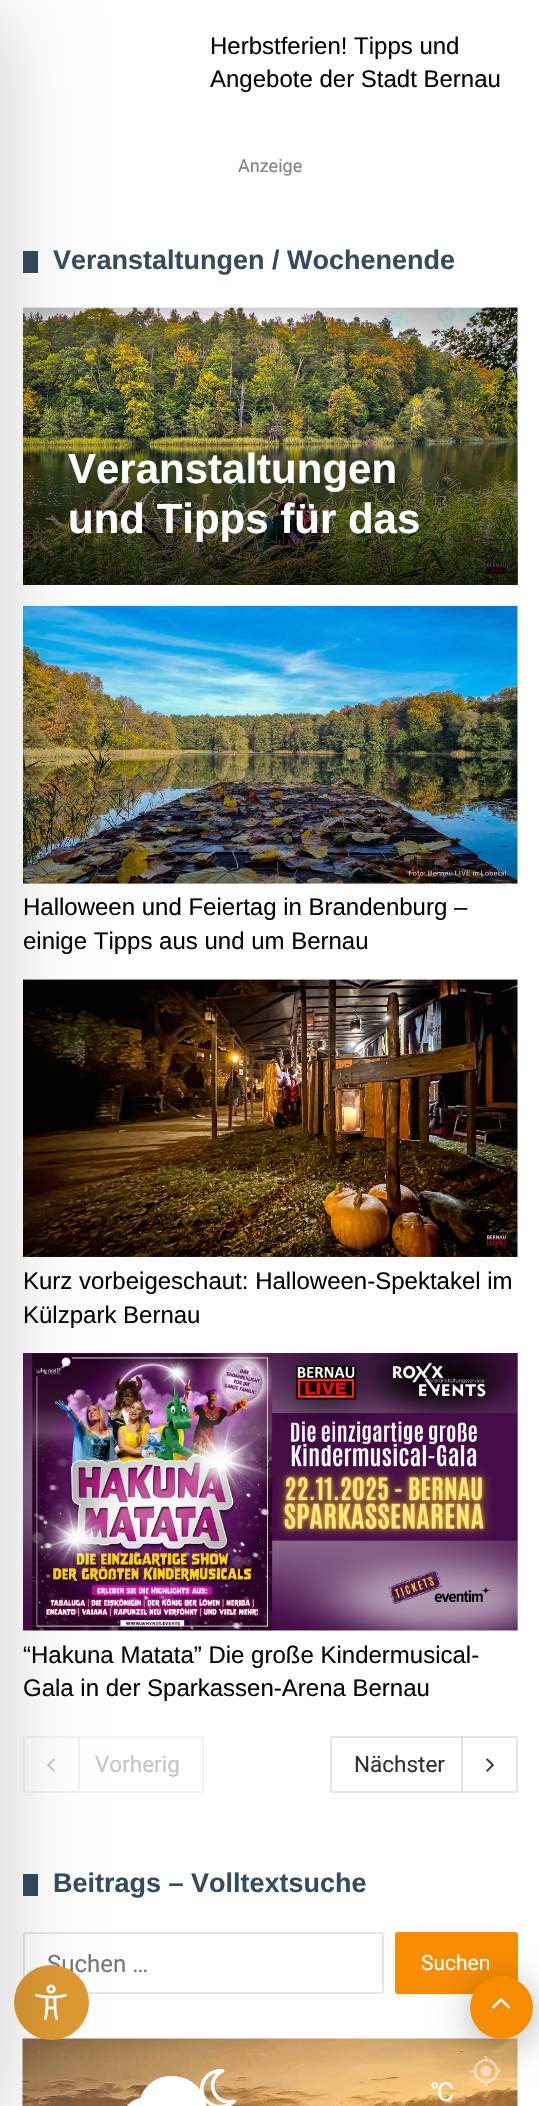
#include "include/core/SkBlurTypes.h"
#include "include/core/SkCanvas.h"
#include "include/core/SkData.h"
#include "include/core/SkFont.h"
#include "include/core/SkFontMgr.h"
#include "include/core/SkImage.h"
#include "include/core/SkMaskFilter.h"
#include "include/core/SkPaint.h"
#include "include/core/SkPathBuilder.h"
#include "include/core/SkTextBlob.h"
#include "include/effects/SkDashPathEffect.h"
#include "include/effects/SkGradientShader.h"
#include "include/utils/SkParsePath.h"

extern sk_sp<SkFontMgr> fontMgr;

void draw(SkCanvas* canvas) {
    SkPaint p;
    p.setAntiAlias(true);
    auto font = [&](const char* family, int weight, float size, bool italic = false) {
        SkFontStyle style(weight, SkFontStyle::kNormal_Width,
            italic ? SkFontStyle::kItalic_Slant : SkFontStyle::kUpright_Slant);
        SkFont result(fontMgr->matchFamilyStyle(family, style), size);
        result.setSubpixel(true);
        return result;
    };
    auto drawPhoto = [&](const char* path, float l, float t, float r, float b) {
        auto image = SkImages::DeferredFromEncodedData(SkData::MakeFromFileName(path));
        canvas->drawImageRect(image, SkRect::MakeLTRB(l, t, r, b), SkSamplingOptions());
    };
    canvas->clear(0xFFFFFFFF);
    p.setColor(0xFF364B60);
    canvas->drawRect(SkRect::MakeLTRB(23, 251, 38, 273), p);
    drawPhoto("media/1.png", 23, 307, 518, 585);
    {
        const SkColor colors[] = {0x00030303, 0xBF030303};
        const float stops[] = {0, 1};
        const SkPoint ends[] = {{270, 404}, {270, 585}};
        p.setShader(SkGradientShader::MakeLinear(ends, colors, stops, 2, SkTileMode::kClamp));
        p.setAlpha(255);
    }
    canvas->drawRect(SkRect::MakeLTRB(23, 409, 518, 585), p);
    drawPhoto("media/2.png", 23, 605, 518, 884);
    drawPhoto("media/3.png", 23, 979, 518, 1257);
    drawPhoto("media/4.png", 23, 1353, 518, 1631);
    p.setStyle(SkPaint::kStroke_Style);
    p.setStrokeWidth(2);
    p.setShader(nullptr);
    p.setColor(0xFFF2F2F2);
    canvas->drawRoundRect(SkRect::MakeLTRB(24, 1737, 203, 1792), 2, 2, p);
    p.setStyle(SkPaint::kFill_Style);
    p.setColor(0x1A818181);
    canvas->drawRect(SkRect::MakeLTRB(78, 1737, 80, 1791), p);
    drawPhoto("media/5.png", 47, 1758, 55, 1772);
    p.setColor(0xFF364B60);
    canvas->drawRect(SkRect::MakeLTRB(23, 1874, 38, 1896), p);
    p.setStyle(SkPaint::kStroke_Style);
    p.setColor(0xFFE6E6E6);
    canvas->drawRoundRect(SkRect::MakeLTRB(24, 1933, 383, 1993), 2, 2, p);
    drawPhoto("media/7.png", 22, 2038, 518, 2106);
    drawPhoto("media/10.png", 200, 2069, 236, 2106);
    drawPhoto("media/9.png", 127, 2076, 201, 2106);
    auto font1 = font("Roboto", 400, 24);
    p.setStyle(SkPaint::kFill_Style);
    p.setColor(0xFF767676);
    canvas->drawString("Suchen …", 47, 1972, font1, p);
    p.setColor(0xFFDD9933);
    canvas->drawCircle(51.5f, 2002.5f, 37.5f, p);
    drawPhoto("media/13.png", 35, 1984, 67, 2020);
    p.setColor(0x33000000);
    p.setMaskFilter(SkMaskFilter::MakeBlur(kNormal_SkBlurStyle, 45));
    canvas->drawRect(SkRect::MakeLTRB(-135, 15, 0, 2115), p);
    p.setMaskFilter(nullptr);
    auto font2 = font("Liberation Sans", 400, 24);
    p.setColor(0xFF050505);
    canvas->drawString("Herbstferien! Tipps und", 210, 54, font2, p);
    canvas->drawString("Angebote der Stadt Bernau", 210, 87, font2, p);
    auto font3 = font("Roboto", 400, 18);
    p.setColor(0xFF818181);
    canvas->drawString("Anzeige", 238, 172, font3, p);
    auto font4 = font("Liberation Sans", 700, 27);
    p.setColor(0xFF364B60);
    canvas->drawString("Veranstaltungen / Wochenende", 53, 269, font4, p);
    auto font5 = font("Liberation Sans", 700, 42);
    p.setColor(0xFFFFFFFF);
    canvas->drawString("Veranstaltungen", 68, 483, font5, p);
    canvas->drawString("und Tipps für das", 68, 533, font5, p);
    p.setColor(0xFF050505);
    {
        const struct { const char* s; float x, y; } items[] = {
            {"Halloween und Feiertag in Brandenburg –", 23, 915},
            {"einige Tipps aus und um Bernau", 23, 949},
            {"Kurz vorbeigeschaut: Halloween-Spektakel im", 23, 1289},
            {"Külzpark Bernau", 23, 1323},
            {"“Hakuna Matata” Die große Kindermusical-", 23, 1663},
            {"Gala in der Sparkassen-Arena Bernau", 23, 1696},
        };
        for (auto [s, x, y] : items) {
            canvas->drawString(s, x, y, font2, p);
        }
    }
    auto font6 = font("Roboto", 400, 22.5f);
    p.setColor(0xFFC4C4C4);
    canvas->drawString("Vorherig", 95, 1772, font6, p);
    p.setStyle(SkPaint::kStroke_Style);
    p.setColor(0xFFE6E6E6);
    canvas->drawRoundRect(SkRect::MakeLTRB(331, 1737, 517, 1792), 2, 2, p);
    p.setStyle(SkPaint::kFill_Style);
    p.setColor(0xFF2E3136);
    canvas->drawString("Nächster", 354, 1772, font6, p);
    p.setColor(0x1A030303);
    canvas->drawRect(SkRect::MakeLTRB(461, 1737, 463, 1791), p);
    drawPhoto("media/6.png", 486, 1758, 494, 1772);
    p.setColor(0xFF364B60);
    canvas->drawString("Beitrags – Volltextsuche", 53, 1892, font4, p);
    p.setColor(0xFFF88D03);
    canvas->drawRoundRect(SkRect::MakeLTRB(395, 1932, 518, 1994), 3, 3, p);
    auto font7 = font("Roboto", 400, 21);
    p.setColor(0xFFFFFFFF);
    canvas->drawString("Suchen", 421, 1970, font7, p);
    drawPhoto("media/8.png", 470, 2056, 502, 2087);
    drawPhoto("media/11.png", 172, 2076, 207, 2106);
    auto font8 = font("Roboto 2", 400, 26);
    canvas->drawString("℃", 431, 2101, font8, p);
    p.setColor(0x4D000000);
    p.setMaskFilter(SkMaskFilter::MakeBlur(kNormal_SkBlurStyle, 19));
    canvas->drawRoundRect(SkRect::MakeLTRB(470, 1983, 533, 2046), 31.5f, 31.5f, p);
    p.setMaskFilter(nullptr);
    p.setColor(0xFFF88C00);
    canvas->drawCircle(501.5f, 2007.5f, 31.5f, p);
    drawPhoto("media/12.png", 491, 1998, 511, 2009);
}
